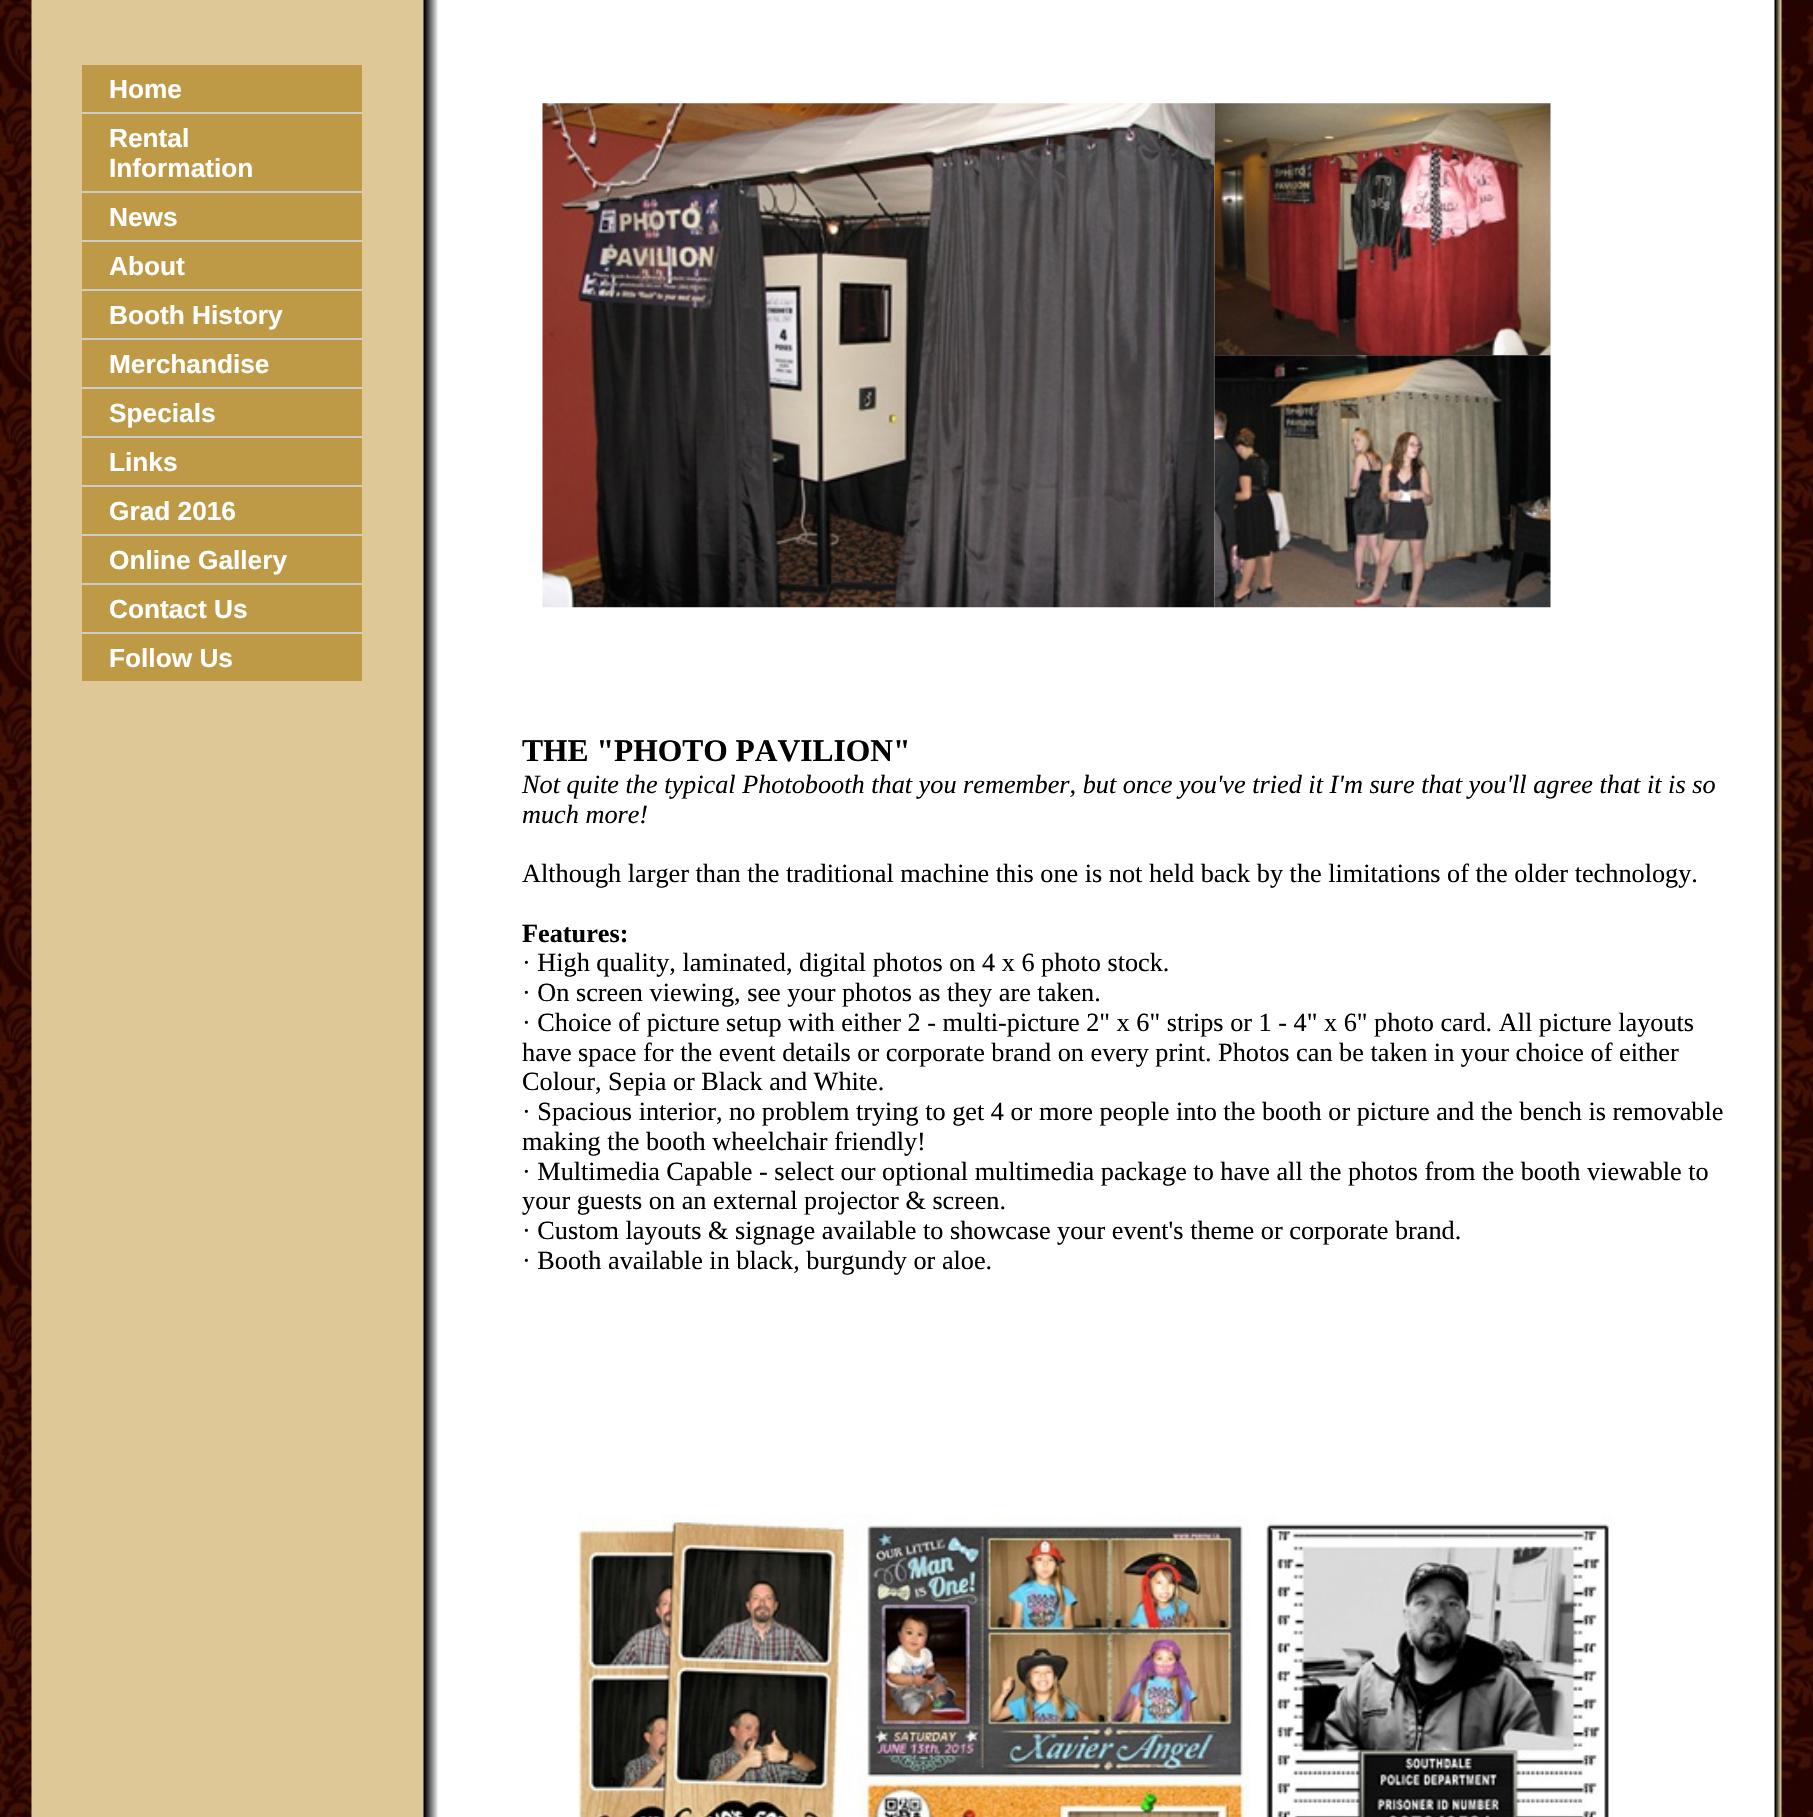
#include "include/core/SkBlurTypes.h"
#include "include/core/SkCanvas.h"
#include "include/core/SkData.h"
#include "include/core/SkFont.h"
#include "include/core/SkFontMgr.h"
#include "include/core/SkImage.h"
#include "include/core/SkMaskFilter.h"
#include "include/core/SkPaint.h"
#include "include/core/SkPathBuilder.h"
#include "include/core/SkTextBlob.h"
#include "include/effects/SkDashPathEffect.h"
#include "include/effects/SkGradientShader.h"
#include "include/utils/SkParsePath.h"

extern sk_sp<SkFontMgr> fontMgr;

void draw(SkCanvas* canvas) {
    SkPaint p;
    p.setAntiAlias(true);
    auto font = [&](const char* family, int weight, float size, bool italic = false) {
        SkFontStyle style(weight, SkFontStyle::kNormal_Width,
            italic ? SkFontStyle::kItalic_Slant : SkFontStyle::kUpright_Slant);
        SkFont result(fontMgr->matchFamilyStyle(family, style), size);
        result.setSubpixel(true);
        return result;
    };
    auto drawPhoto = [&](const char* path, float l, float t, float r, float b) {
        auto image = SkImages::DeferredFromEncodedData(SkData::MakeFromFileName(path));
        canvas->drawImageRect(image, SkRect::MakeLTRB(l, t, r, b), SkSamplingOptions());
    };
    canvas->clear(0xFFFFFFFF);
    drawPhoto("media/1.png", 0, 0, 1813, 1817);
    drawPhoto("media/2.png", 31, 0, 1782, 1817);
    p.setColor(0xFFBE9A46);
    canvas->drawRect(SkRect::MakeLTRB(82, 65, 362, 112), p);
    p.setColor(0xFFCCCCCC);
    canvas->drawRect(SkRect::MakeLTRB(82, 112, 362, 114), p);
    auto font1 = font("Liberation Sans", 700, 26.25f);
    p.setColor(0xFFFFFFFF);
    canvas->drawString("Home", 109, 98, font1, p);
    p.setColor(0xFFBE9A46);
    canvas->drawRect(SkRect::MakeLTRB(82, 114, 362, 191), p);
    p.setColor(0xFFCCCCCC);
    canvas->drawRect(SkRect::MakeLTRB(82, 191, 362, 193), p);
    p.setColor(0xFFFFFFFF);
    canvas->drawString("Rental", 109, 147, font1, p);
    canvas->drawString("Information", 109, 177, font1, p);
    p.setColor(0xFFBE9A46);
    canvas->drawRect(SkRect::MakeLTRB(82, 193, 362, 240), p);
    p.setColor(0xFFCCCCCC);
    canvas->drawRect(SkRect::MakeLTRB(82, 240, 362, 242), p);
    p.setColor(0xFFFFFFFF);
    canvas->drawString("News", 109, 226, font1, p);
    p.setColor(0xFFBE9A46);
    canvas->drawRect(SkRect::MakeLTRB(82, 242, 362, 289), p);
    p.setColor(0xFFCCCCCC);
    canvas->drawRect(SkRect::MakeLTRB(82, 289, 362, 291), p);
    p.setColor(0xFFFFFFFF);
    canvas->drawString("About", 109, 275, font1, p);
    p.setColor(0xFFBE9A46);
    canvas->drawRect(SkRect::MakeLTRB(82, 291, 362, 338), p);
    p.setColor(0xFFCCCCCC);
    canvas->drawRect(SkRect::MakeLTRB(82, 338, 362, 340), p);
    p.setColor(0xFFFFFFFF);
    canvas->drawString("Booth History", 109, 324, font1, p);
    p.setColor(0xFFBE9A46);
    canvas->drawRect(SkRect::MakeLTRB(82, 340, 362, 387), p);
    p.setColor(0xFFCCCCCC);
    canvas->drawRect(SkRect::MakeLTRB(82, 387, 362, 389), p);
    p.setColor(0xFFFFFFFF);
    canvas->drawString("Merchandise", 109, 373, font1, p);
    p.setColor(0xFFBE9A46);
    canvas->drawRect(SkRect::MakeLTRB(82, 389, 362, 436), p);
    p.setColor(0xFFCCCCCC);
    canvas->drawRect(SkRect::MakeLTRB(82, 436, 362, 438), p);
    p.setColor(0xFFFFFFFF);
    canvas->drawString("Specials", 109, 422, font1, p);
    p.setColor(0xFFBE9A46);
    canvas->drawRect(SkRect::MakeLTRB(82, 438, 362, 485), p);
    p.setColor(0xFFCCCCCC);
    canvas->drawRect(SkRect::MakeLTRB(82, 485, 362, 487), p);
    p.setColor(0xFFFFFFFF);
    canvas->drawString("Links", 109, 471, font1, p);
    p.setColor(0xFFBE9A46);
    canvas->drawRect(SkRect::MakeLTRB(82, 487, 362, 534), p);
    p.setColor(0xFFCCCCCC);
    canvas->drawRect(SkRect::MakeLTRB(82, 534, 362, 536), p);
    p.setColor(0xFFFFFFFF);
    canvas->drawString("Grad 2016", 109, 520, font1, p);
    p.setColor(0xFFBE9A46);
    canvas->drawRect(SkRect::MakeLTRB(82, 536, 362, 583), p);
    p.setColor(0xFFCCCCCC);
    canvas->drawRect(SkRect::MakeLTRB(82, 583, 362, 585), p);
    p.setColor(0xFFFFFFFF);
    canvas->drawString("Online Gallery", 109, 569, font1, p);
    p.setColor(0xFFBE9A46);
    canvas->drawRect(SkRect::MakeLTRB(82, 585, 362, 632), p);
    p.setColor(0xFFCCCCCC);
    canvas->drawRect(SkRect::MakeLTRB(82, 632, 362, 634), p);
    p.setColor(0xFFFFFFFF);
    canvas->drawString("Contact Us", 109, 618, font1, p);
    p.setColor(0xFFBE9A46);
    canvas->drawRect(SkRect::MakeLTRB(82, 634, 362, 681), p);
    p.setColor(0xFFFFFFFF);
    canvas->drawString("Follow Us", 109, 667, font1, p);
    drawPhoto("media/3.png", 542, 103, 1215, 608);
    drawPhoto("media/4.png", 1214, 103, 1551, 356);
    drawPhoto("media/5.png", 1214, 355, 1551, 608);
    auto font2 = font("Liberation Serif", 700, 31.5f);
    p.setColor(0xFF000000);
    canvas->drawString("THE \"PHOTO PAVILION\"", 522, 761, font2, p);
    auto font3 = font("Liberation Serif", 400, 26.25f, true);
    canvas->drawString("Not quite the typical Photobooth that you remember, but once you've tried it I'm sure that you'll agree that it is so", 522, 793, font3, p);
    canvas->drawString("much more!", 522, 823, font3, p);
    auto font4 = font("Liberation Serif", 400, 26.25f);
    canvas->drawString("Although larger than the traditional machine this one is not held back by the limitations of the older technology.", 522, 882, font4, p);
    auto font5 = font("Liberation Serif", 700, 26.25f);
    canvas->drawString("Features:", 522, 942, font5, p);
    {
        const struct { const char* s; float x, y; } items[] = {
            {"· High quality, laminated, digital photos on 4 x 6 photo stock.", 522, 971},
            {"· On screen viewing, see your photos as they are taken.", 522, 1001},
            {"· Choice of picture setup with either 2 - multi-picture 2\" x 6\" strips or 1 - 4\" x 6\" photo card. All picture layouts", 522, 1031},
            {"have space for the event details or corporate brand on every print. Photos can be taken in your choice of either", 522, 1061},
            {"Colour, Sepia or Black and White.", 522, 1090},
            {"· Spacious interior, no problem trying to get 4 or more people into the booth or picture and the bench is removable", 522, 1120},
            {"making the booth wheelchair friendly!", 522, 1150},
            {"· Multimedia Capable - select our optional multimedia package to have all the photos from the booth viewable to", 522, 1180},
            {"your guests on an external projector & screen.", 522, 1209},
            {"· Custom layouts & signage available to showcase your event's theme or corporate brand.", 522, 1239},
            {"· Booth available in black, burgundy or aloe.", 522, 1269},
        };
        for (auto [s, x, y] : items) {
            canvas->drawString(s, x, y, font4, p);
        }
    }
    drawPhoto("media/6.png", 576, 1514, 1613, 1817);
}
